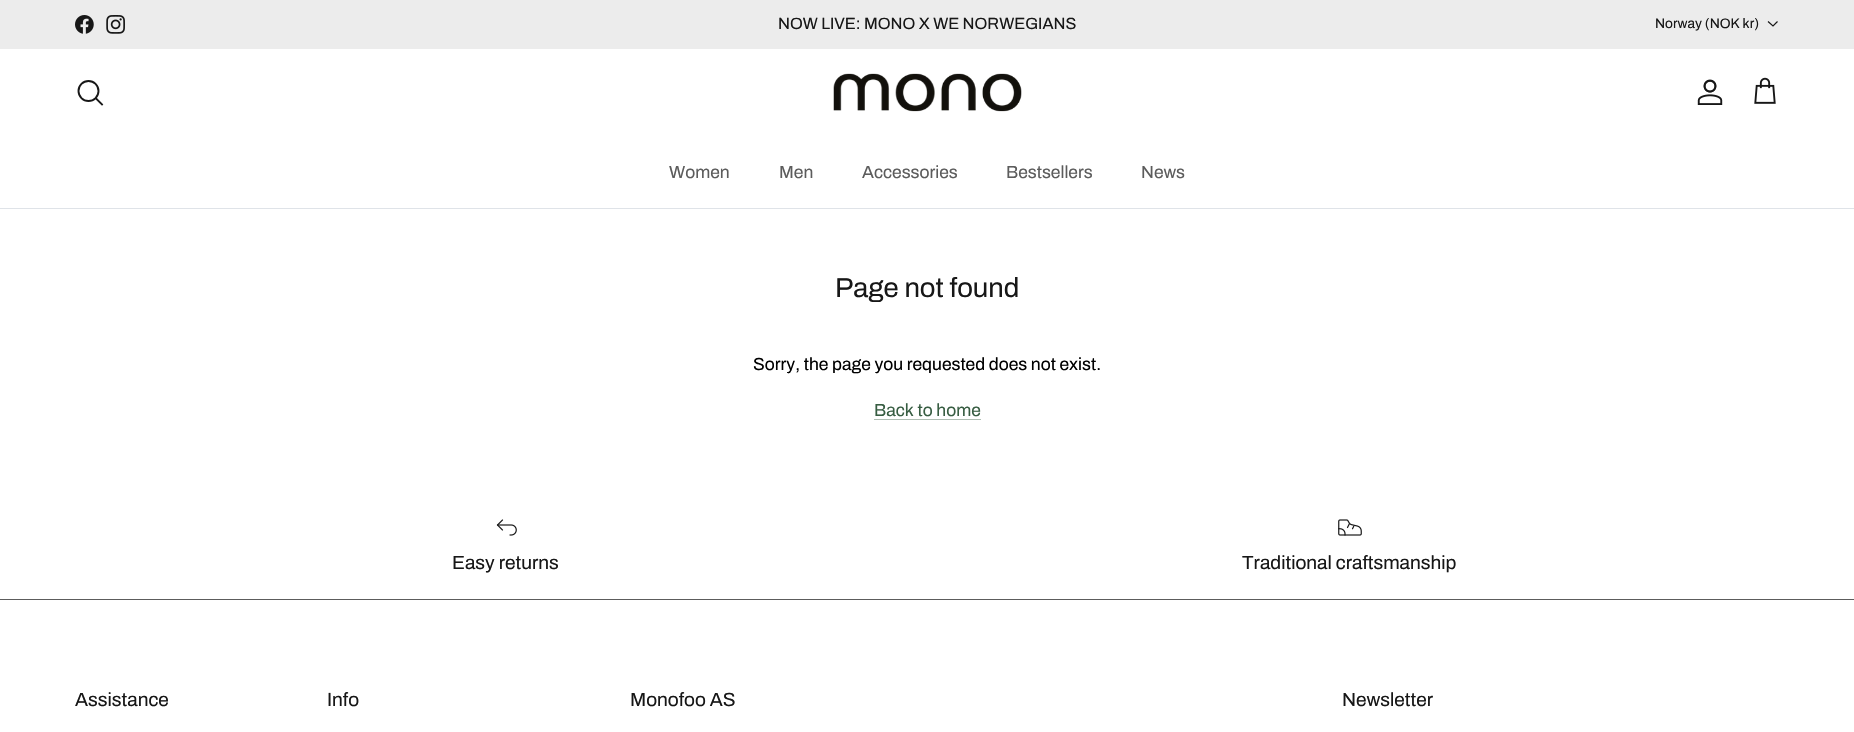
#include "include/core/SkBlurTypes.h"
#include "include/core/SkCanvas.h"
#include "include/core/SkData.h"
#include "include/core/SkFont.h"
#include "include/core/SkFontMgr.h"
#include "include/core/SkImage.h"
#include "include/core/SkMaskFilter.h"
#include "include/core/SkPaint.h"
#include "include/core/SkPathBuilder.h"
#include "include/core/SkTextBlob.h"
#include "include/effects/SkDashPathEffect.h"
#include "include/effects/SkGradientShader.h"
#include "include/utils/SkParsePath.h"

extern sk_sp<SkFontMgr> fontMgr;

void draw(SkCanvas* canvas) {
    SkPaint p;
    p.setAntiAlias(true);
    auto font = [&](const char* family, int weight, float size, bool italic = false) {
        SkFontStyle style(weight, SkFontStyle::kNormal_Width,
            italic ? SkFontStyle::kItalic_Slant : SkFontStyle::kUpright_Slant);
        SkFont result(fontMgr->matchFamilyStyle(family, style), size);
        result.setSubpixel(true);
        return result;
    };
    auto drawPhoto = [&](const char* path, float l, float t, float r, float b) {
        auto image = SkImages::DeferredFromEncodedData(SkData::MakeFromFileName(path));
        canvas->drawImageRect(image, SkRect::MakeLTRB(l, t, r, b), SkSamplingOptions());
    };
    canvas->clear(0xFFFFFFFF);
    p.setColor(0xFFECECEC);
    canvas->drawRect(SkRect::MakeLTRB(0, 0, 1854, 49), p);
    drawPhoto("media/1.png", 75, 15, 94, 34);
    drawPhoto("media/2.png", 106, 15, 125, 34);
    auto font1 = font("Archivo", 400, 16.25f);
    p.setColor(0xFF171717);
    canvas->drawString("NOW LIVE: MONO X WE NORWEGIANS", 778, 29, font1, p);
    auto font2 = font("Archivo", 400, 13.75f);
    canvas->drawString("Norway (NOK kr)", 1655, 28, font2, p);
    p.setStyle(SkPaint::kStroke_Style);
    p.setStrokeWidth(1.2f);
    canvas->drawPath(SkPathBuilder().moveTo(1777.5f, 21.5f).lineTo(1773, 26).lineTo(1768, 21.5f).detach(), p);
    p.setStrokeWidth(1.9f);
    canvas->drawCircle(88.5f, 91, 10, p);
    p.setStrokeCap(SkPaint::kSquare_Cap);
    canvas->drawPath(SkPathBuilder().moveTo(96, 98.5f).lineTo(102, 104.5f).detach(), p);
    drawPhoto("media/3.png", 833, 73, 1022, 112);
    drawPhoto("media/4.png", 1697, 79, 1723, 105);
    drawPhoto("media/5.png", 1754, 77, 1776, 104);
    p.setStyle(SkPaint::kFill_Style);
    p.setColor(0xFFDFE3E8);
    canvas->drawRect(SkRect::MakeLTRB(0, 208, 1854, 209), p);
    auto font3 = font("Archivo", 400, 17.5f);
    p.setColor(0xFF5C5C5C);
    {
        const struct { const char* s; float x, y; } items[] = {
            {"Women", 669, 178},
            {"Men", 779, 178},
            {"Accessories", 862, 178},
            {"Bestsellers", 1006, 178},
            {"News", 1141, 178},
        };
        for (auto [s, x, y] : items) {
            canvas->drawString(s, x, y, font3, p);
        }
    }
    auto font4 = font("Archivo", 400, 27.5f);
    p.setColor(0xFF171717);
    canvas->drawString("Page not found", 835, 297, font4, p);
    p.setColor(0xFF000000);
    canvas->drawString("Sorry, the page you requested does not exist.", 753, 370, font3, p);
    p.setColor(0xFF375D42);
    canvas->drawString("Back to home", 874, 416, font3, p);
    p.setColor(0xFFAFBEB3);
    canvas->drawRect(SkRect::MakeLTRB(874, 419, 981, 420), p);
    drawPhoto("media/6.png", 496, 519, 517, 536);
    auto font5 = font("Archivo", 400, 19.1f);
    p.setColor(0xFF171717);
    canvas->drawString("Easy returns", 452, 569, font5, p);
    drawPhoto("media/7.png", 1338, 519, 1362, 536);
    canvas->drawString("Traditional craftsmanship", 1242, 569, font5, p);
    p.setColor(0xFF5C5C5C);
    canvas->drawRect(SkRect::MakeLTRB(0, 599, 1854, 600), p);
    p.setColor(0xFF171717);
    {
        const struct { const char* s; float x, y; } items[] = {
            {"Assistance", 75, 706},
            {"Info", 327, 706},
            {"Monofoo AS", 630, 706},
            {"Newsletter", 1342, 706},
        };
        for (auto [s, x, y] : items) {
            canvas->drawString(s, x, y, font5, p);
        }
    }
}
